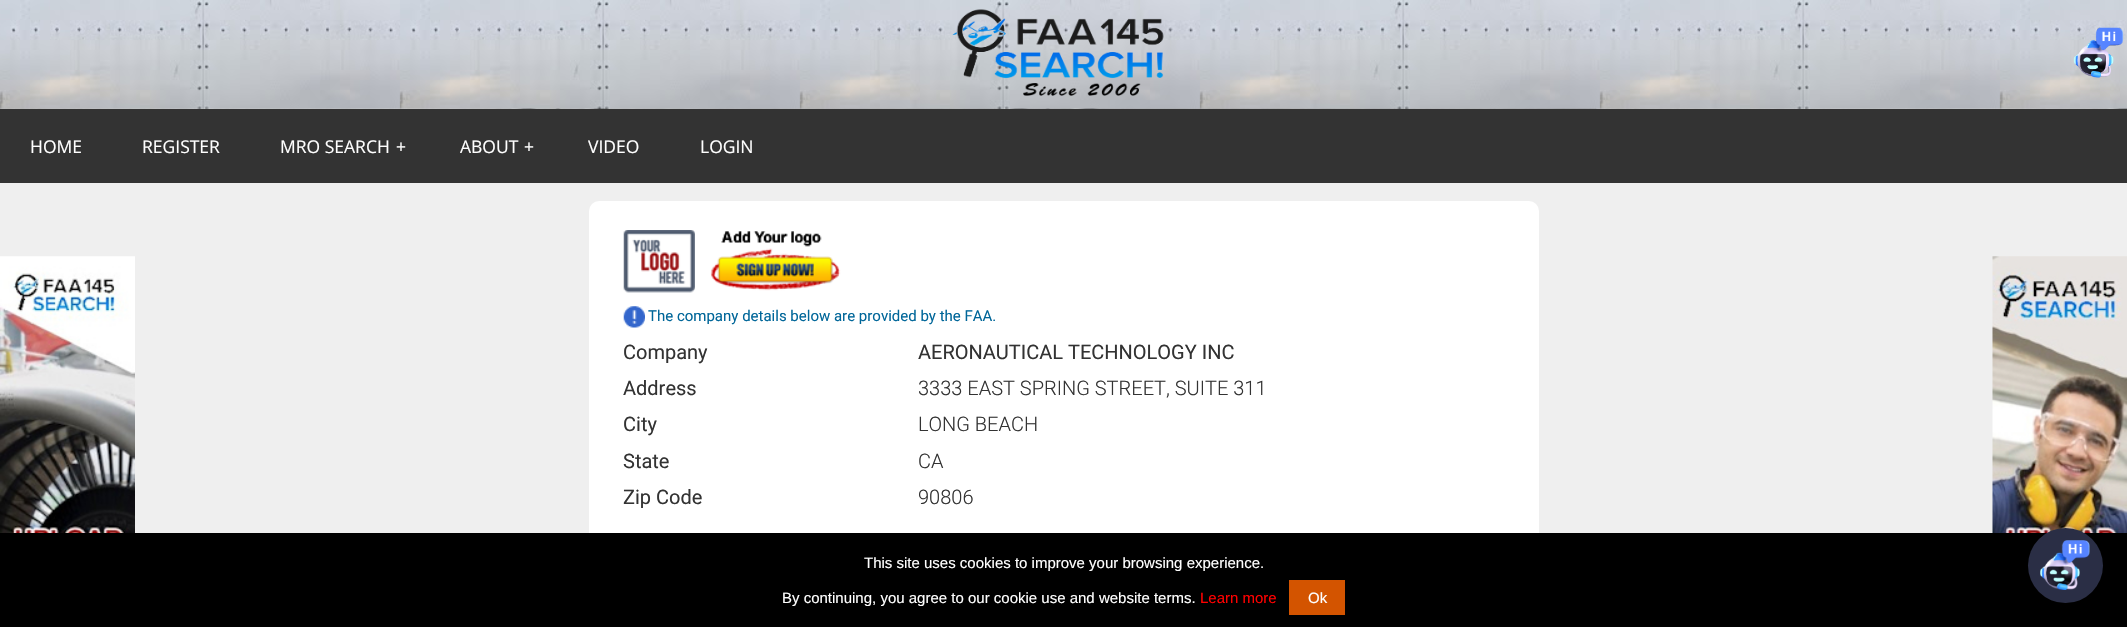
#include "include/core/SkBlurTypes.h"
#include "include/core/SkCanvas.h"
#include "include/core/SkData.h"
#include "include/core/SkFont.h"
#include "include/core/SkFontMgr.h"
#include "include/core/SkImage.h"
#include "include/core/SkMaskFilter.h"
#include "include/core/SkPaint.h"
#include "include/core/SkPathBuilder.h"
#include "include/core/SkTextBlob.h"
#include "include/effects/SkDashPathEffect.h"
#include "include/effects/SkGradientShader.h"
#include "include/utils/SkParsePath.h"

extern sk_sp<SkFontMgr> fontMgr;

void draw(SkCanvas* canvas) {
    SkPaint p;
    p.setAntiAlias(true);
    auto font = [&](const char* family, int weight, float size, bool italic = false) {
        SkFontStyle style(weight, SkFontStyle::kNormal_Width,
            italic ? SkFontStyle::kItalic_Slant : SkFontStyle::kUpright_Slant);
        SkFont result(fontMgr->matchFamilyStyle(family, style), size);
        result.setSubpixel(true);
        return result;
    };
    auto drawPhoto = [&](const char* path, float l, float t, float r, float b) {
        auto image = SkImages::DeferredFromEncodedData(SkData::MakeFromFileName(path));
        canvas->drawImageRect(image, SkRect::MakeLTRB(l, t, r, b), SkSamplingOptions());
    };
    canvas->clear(0xFFFFFFFF);
    drawPhoto("media/1.png", 0, 108, 2127, 109);
    drawPhoto("media/2.png", 0, 0, 2127, 109);
    drawPhoto("media/3.png", 952, 9, 1164, 96);
    drawPhoto("media/4.png", 2073, 27, 2124, 78);
    p.setColor(0xFF333333);
    canvas->drawRect(SkRect::MakeLTRB(0, 109, 2127, 183), p);
    auto font1 = font("Open Sans", 400, 17.5f);
    p.setColor(0xFFFFFFFF);
    {
        const struct { const char* s; float x, y; } items[] = {
            {"HOME", 30, 153},
            {"REGISTER", 142, 153},
            {"MRO SEARCH", 280, 153},
            {"+", 396, 153},
            {"ABOUT", 460, 153},
            {"+", 524, 153},
            {"VIDEO", 588, 153},
            {"LOGIN", 700, 153},
        };
        for (auto [s, x, y] : items) {
            canvas->drawString(s, x, y, font1, p);
        }
    }
    p.setColor(0xFFEFEFEF);
    canvas->drawRect(SkRect::MakeLTRB(0, 183, 2127, 533), p);
    drawPhoto("media/5.png", 0, 256, 135, 533);
    p.setColor(0xFFFFFFFF);
    canvas->drawRoundRect(SkRect::MakeLTRB(589, 201, 1539, 606), 10, 10, p);
    drawPhoto("media/6.png", 623, 230, 695, 293);
    drawPhoto("media/7.png", 710, 231, 841, 291);
    drawPhoto("media/8.png", 623, 306, 645, 328);
    auto font2 = font("Roboto", 400, 15);
    p.setColor(0xFF006699);
    canvas->drawString("The company details below are provided by the FAA.", 648, 321, font2, p);
    auto font3 = font("Roboto", 400, 20);
    p.setColor(0xFF333333);
    {
        const struct { const char* s; float x, y; } items[] = {
            {"Company", 623, 359},
            {"AERONAUTICAL TECHNOLOGY INC", 918, 359},
            {"Address", 623, 395},
        };
        for (auto [s, x, y] : items) {
            canvas->drawString(s, x, y, font3, p);
        }
    }
    auto font4 = font("Roboto", 300, 20);
    canvas->drawString("3333 EAST SPRING STREET, SUITE 311", 918, 395, font4, p);
    canvas->drawString("City", 623, 431, font3, p);
    canvas->drawString("LONG BEACH", 918, 431, font4, p);
    canvas->drawString("State", 623, 468, font3, p);
    canvas->drawString("CA", 918, 468, font4, p);
    canvas->drawString("Zip Code", 623, 504, font3, p);
    canvas->drawString("90806", 918, 504, font4, p);
    drawPhoto("media/9.png", 1992, 256, 2127, 533);
    p.setColor(0xFF000000);
    canvas->drawRect(SkRect::MakeLTRB(0, 533, 2127, 627), p);
    auto font5 = font("Liberation Sans", 400, 15);
    p.setColor(0xFFFFFFFF);
    canvas->drawString("This site uses cookies to improve your browsing experience.", 864, 568, font5, p);
    canvas->drawString("By continuing, you agree to our cookie use and website terms.", 782, 603, font5, p);
    p.setColor(0xFFFF0000);
    canvas->drawString("Learn more", 1200, 603, font5, p);
    p.setColor(0xFFD35400);
    canvas->drawRect(SkRect::MakeLTRB(1289, 580, 1345, 615), p);
    p.setColor(0xFFFFFFFF);
    canvas->drawString("Ok", 1308, 603, font5, p);
    p.setColor(0x33000000);
    p.setMaskFilter(SkMaskFilter::MakeBlur(kNormal_SkBlurStyle, 6));
    canvas->drawRoundRect(SkRect::MakeLTRB(2028, 530, 2103, 605), 37.5f, 37.5f, p);
    p.setMaskFilter(nullptr);
    p.setColor(0xFF2A2E45);
    canvas->drawCircle(2065.5f, 565.5f, 37.5f, p);
    drawPhoto("media/10.png", 2040, 540, 2090, 590);
}
